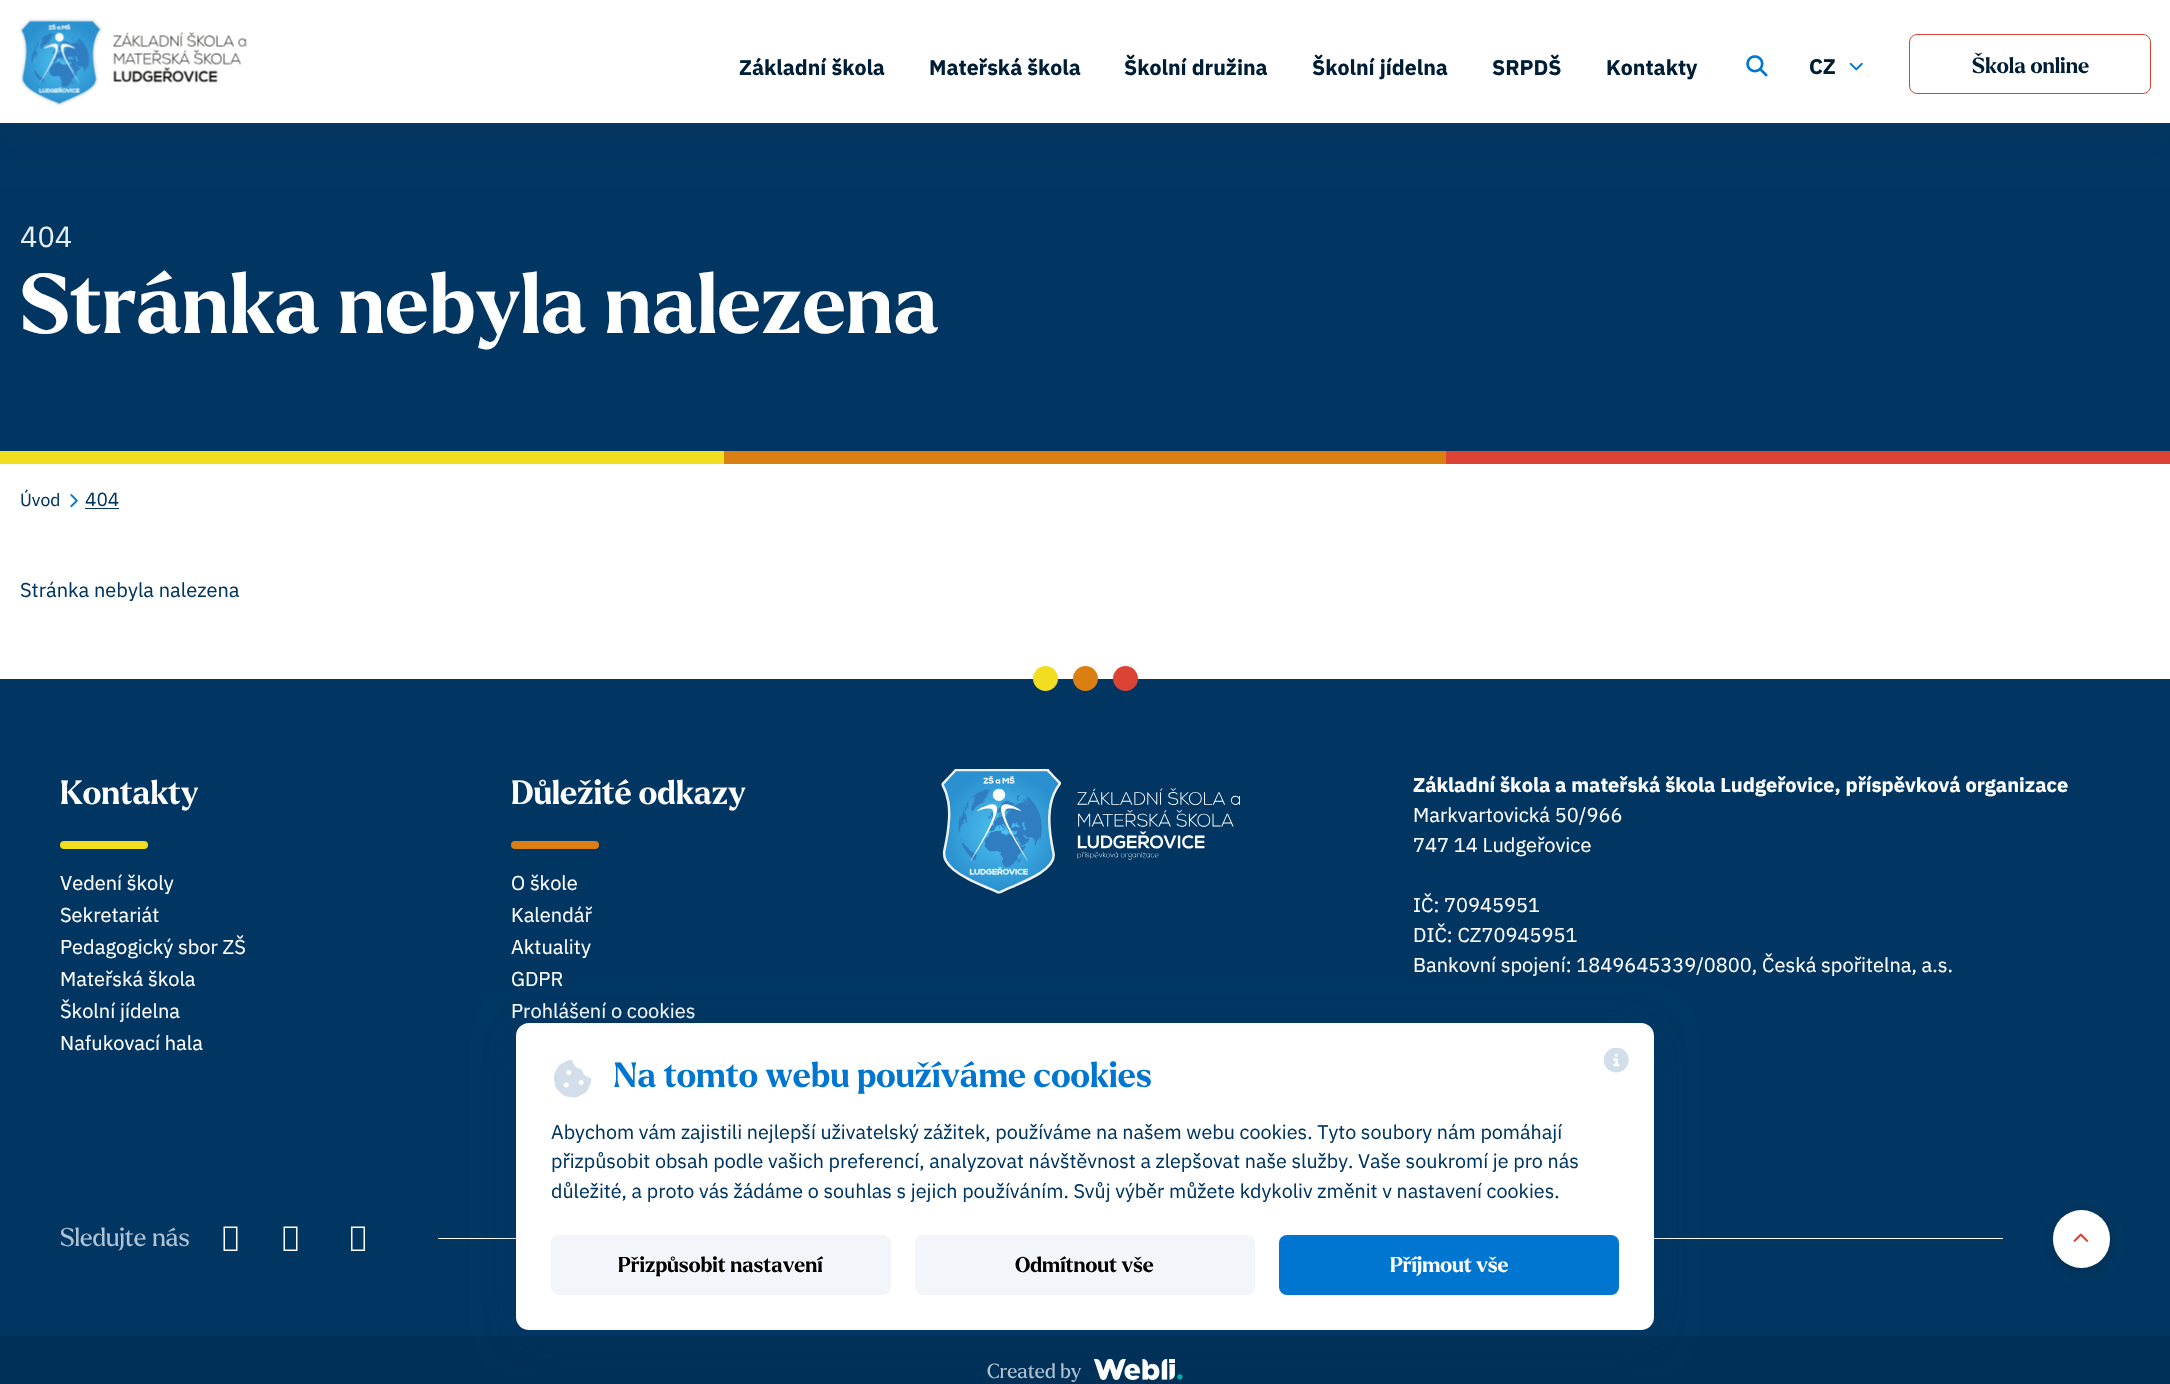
#include "include/core/SkBlurTypes.h"
#include "include/core/SkCanvas.h"
#include "include/core/SkData.h"
#include "include/core/SkFont.h"
#include "include/core/SkFontMgr.h"
#include "include/core/SkImage.h"
#include "include/core/SkMaskFilter.h"
#include "include/core/SkPaint.h"
#include "include/core/SkPathBuilder.h"
#include "include/core/SkTextBlob.h"
#include "include/effects/SkDashPathEffect.h"
#include "include/effects/SkGradientShader.h"
#include "include/utils/SkParsePath.h"

extern sk_sp<SkFontMgr> fontMgr;

void draw(SkCanvas* canvas) {
    SkPaint p;
    p.setAntiAlias(true);
    auto font = [&](const char* family, int weight, float size, bool italic = false) {
        SkFontStyle style(weight, SkFontStyle::kNormal_Width,
            italic ? SkFontStyle::kItalic_Slant : SkFontStyle::kUpright_Slant);
        SkFont result(fontMgr->matchFamilyStyle(family, style), size);
        result.setSubpixel(true);
        return result;
    };
    auto drawPhoto = [&](const char* path, float l, float t, float r, float b) {
        auto image = SkImages::DeferredFromEncodedData(SkData::MakeFromFileName(path));
        canvas->drawImageRect(image, SkRect::MakeLTRB(l, t, r, b), SkSamplingOptions());
    };
    canvas->clear(0xFFFFFFFF);
    p.setColor(0xFF013662);
    canvas->drawRect(SkRect::MakeLTRB(0, 123, 2170, 451), p);
    p.setColor(0x1A242D3F);
    p.setMaskFilter(SkMaskFilter::MakeBlur(kNormal_SkBlurStyle, 17));
    canvas->drawRect(SkRect::MakeLTRB(0, 13, 2170, 135), p);
    p.setMaskFilter(nullptr);
    p.setColor(0xFFFFFFFF);
    canvas->drawRect(SkRect::MakeLTRB(0, 0, 2170, 123), p);
    drawPhoto("media/1.png", 19, 18, 247, 106);
    auto font1 = font("IBM Plex Sans", 700, 21.25f);
    p.setColor(0xFF001E35);
    {
        const struct { const char* s; float x, y; } items[] = {
            {"Základní škola", 739, 75},
            {"Mateřská škola", 929, 75},
            {"Školní družina", 1124, 75},
            {"Školní jídelna", 1312, 75},
            {"SRPDŠ", 1492, 75},
            {"Kontakty", 1606, 75},
        };
        for (auto [s, x, y] : items) {
            canvas->drawString(s, x, y, font1, p);
        }
    }
    drawPhoto("media/2.png", 1746, 55, 1768, 77);
    canvas->drawString("CZ", 1809, 74, font1, p);
    drawPhoto("media/3.png", 1849, 62, 1863, 71);
    p.setStyle(SkPaint::kStroke_Style);
    p.setStrokeWidth(1);
    p.setColor(0xFFDB4434);
    canvas->drawRoundRect(SkRect::MakeLTRB(1909.5f, 34.5f, 2150.5f, 93.5f), 7.5f, 7.5f, p);
    auto font2 = font("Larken", 700, 21.25f);
    p.setStyle(SkPaint::kFill_Style);
    p.setColor(0xFF001E35);
    canvas->drawString("Škola online", 1972, 73, font2, p);
    auto font3 = font("IBM Plex Sans", 400, 29);
    p.setColor(0xFFE7EEF4);
    canvas->drawString("404", 20, 247, font3, p);
    auto font4 = font("Larken", 700, 82.25f);
    p.setColor(0xFFFFFFFF);
    canvas->drawString("Stránka nebyla nalezena", 20, 333, font4, p);
    {
        const struct { float l, t, r, b; SkColor color; } items[] = {
            {0, 451, 724, 464, 0xFFF3DD21},
            {724, 451, 1446, 464, 0xFFDB7F13},
            {1446, 451, 2170, 464, 0xFFDB4434},
        };
        for (auto [l, t, r, b, color] : items) {
            p.setColor(color);
            canvas->drawRect(SkRect::MakeLTRB(l, t, r, b), p);
        }
    }
    auto font5 = font("IBM Plex Sans", 400, 17.5f);
    p.setColor(0xFF003661);
    canvas->drawString("Úvod", 20, 506, font5, p);
    drawPhoto("media/4.png", 70, 494, 78, 508);
    auto font6 = font("IBM Plex Sans", 400, 19);
    canvas->drawString("404", 85, 506, font6, p);
    canvas->drawRect(SkRect::MakeLTRB(85, 508, 119, 509), p);
    auto font7 = font("IBM Plex Sans", 400, 20);
    canvas->drawString("Stránka nebyla nalezena", 20, 597, font7, p);
    p.setColor(0xFF013662);
    canvas->drawRect(SkRect::MakeLTRB(0, 679, 2170, 1336), p);
    p.setColor(0xFFF3DD21);
    canvas->drawCircle(1045.5f, 678.5f, 12.5f, p);
    p.setColor(0xFFDB7F13);
    canvas->drawCircle(1085.5f, 678.5f, 12.5f, p);
    p.setColor(0xFFDB4434);
    canvas->drawCircle(1125.5f, 678.5f, 12.5f, p);
    auto font8 = font("Larken", 700, 32.5f);
    p.setColor(0xFFFFFFFF);
    canvas->drawString("Kontakty", 60, 804, font8, p);
    p.setColor(0xFFF3DD21);
    canvas->drawRoundRect(SkRect::MakeLTRB(60, 841, 148, 849), 4, 4, p);
    p.setColor(0xFFFFFFFF);
    {
        const struct { const char* s; float x, y; } items[] = {
            {"Vedení školy", 60, 890},
            {"Sekretariát", 60, 922},
            {"Pedagogický sbor ZŠ", 60, 954},
            {"Mateřská škola", 60, 986},
            {"Školní jídelna", 60, 1018},
            {"Nafukovací hala", 60, 1050},
        };
        for (auto [s, x, y] : items) {
            canvas->drawString(s, x, y, font7, p);
        }
    }
    canvas->drawString("Důležité odkazy", 511, 804, font8, p);
    p.setColor(0xFFDB7F13);
    canvas->drawRoundRect(SkRect::MakeLTRB(511, 841, 599, 849), 4, 4, p);
    p.setColor(0xFFFFFFFF);
    {
        const struct { const char* s; float x, y; } items[] = {
            {"O škole", 511, 890},
            {"Kalendář", 511, 922},
            {"Aktuality", 511, 954},
            {"GDPR", 511, 986},
            {"Prohlášení o cookies", 511, 1018},
        };
        for (auto [s, x, y] : items) {
            canvas->drawString(s, x, y, font7, p);
        }
    }
    drawPhoto("media/5.png", 941, 769, 1240, 894);
    auto font9 = font("IBM Plex Sans", 700, 20);
    canvas->drawString("Základní škola a mateřská škola Ludgeřovice, příspěvková organizace", 1413, 792, font9, p);
    {
        const struct { const char* s; float x, y; } items[] = {
            {"Markvartovická 50/966", 1413, 822},
            {"747 14 Ludgeřovice", 1413, 852},
            {"IČ: 70945951", 1413, 912},
            {"DIČ: CZ70945951", 1413, 942},
            {"Bankovní spojení: 1849645339/0800, Česká spořitelna, a.s.", 1413, 972},
        };
        for (auto [s, x, y] : items) {
            canvas->drawString(s, x, y, font7, p);
        }
    }
    auto font10 = font("Larken", 400, 25);
    p.setColor(0xFFAFC3D4);
    canvas->drawString("Sledujte nás", 60, 1246, font10, p);
    p.setColor(0xFFFFFFFF);
    canvas->drawPath(SkPathBuilder().moveTo(223.5f, 1251).lineTo(223.5f, 1226.5f).lineTo(237.5f, 1226.5f).lineTo(237.5f, 1251).close().moveTo(225, 1249.5f).lineTo(236, 1249.5f).lineTo(236, 1228).lineTo(225, 1228).close().detach(), p);
    canvas->drawPath(SkPathBuilder().moveTo(283.5f, 1251).lineTo(283.5f, 1226.5f).lineTo(297.5f, 1226.5f).lineTo(297.5f, 1251).close().moveTo(285, 1249.5f).lineTo(296, 1249.5f).lineTo(296, 1228).lineTo(285, 1228).close().detach(), p);
    canvas->drawPath(SkPathBuilder().moveTo(351, 1251).lineTo(351, 1226.5f).lineTo(365, 1226.5f).lineTo(365, 1251).close().moveTo(352.5f, 1249.5f).lineTo(363.5f, 1249.5f).lineTo(363.5f, 1228).lineTo(352.5f, 1228).close().detach(), p);
    canvas->drawRect(SkRect::MakeLTRB(438, 1238, 2003, 1239), p);
    p.setColor(0x6600182C);
    p.setMaskFilter(SkMaskFilter::MakeBlur(kNormal_SkBlurStyle, 6));
    canvas->drawRoundRect(SkRect::MakeLTRB(2053, 1213, 2110, 1270), 28.5f, 28.5f, p);
    p.setMaskFilter(nullptr);
    p.setColor(0xFFFFFFFF);
    canvas->drawRoundRect(SkRect::MakeLTRB(2053, 1210, 2110, 1268), 28.5f, 28.5f, p);
    drawPhoto("media/6.png", 2073, 1233, 2089, 1242);
    p.setColor(0xFF003057);
    canvas->drawRect(SkRect::MakeLTRB(0, 1336, 2170, 1384), p);
    drawPhoto("media/9.png", 1094, 1359, 1183, 1380);
    p.setColor(0x4D003661);
    p.setMaskFilter(SkMaskFilter::MakeBlur(kNormal_SkBlurStyle, 19));
    canvas->drawRoundRect(SkRect::MakeLTRB(516, 1029, 1654, 1336), 13, 13, p);
    p.setMaskFilter(nullptr);
    p.setColor(0xFFFFFFFF);
    canvas->drawRoundRect(SkRect::MakeLTRB(516, 1023, 1654, 1330), 13, 13, p);
    drawPhoto("media/7.png", 554, 1060, 591, 1098);
    auto font11 = font("Larken", 700, 34.1f);
    p.setColor(0xFF0076D1);
    canvas->drawString("Na tomto webu používáme cookies", 613, 1087, font11, p);
    drawPhoto("media/8.png", 1604, 1048, 1629, 1073);
    auto font12 = font("IBM Plex Sans", 400, 19.7f);
    p.setColor(0xFF003661);
    {
        const struct { const char* s; float x, y; } items[] = {
            {"Abychom vám zajistili nejlepší uživatelský zážitek, používáme na našem webu cookies. Tyto soubory nám pomáhají", 551, 1139},
            {"přizpůsobit obsah podle vašich preferencí, analyzovat návštěvnost a zlepšovat naše služby. Vaše soukromí je pro nás", 551, 1168},
            {"důležité, a proto vás žádáme o souhlas s jejich používáním. Svůj výběr můžete kdykoliv změnit v nastavení cookies.", 551, 1198},
        };
        for (auto [s, x, y] : items) {
            canvas->drawString(s, x, y, font12, p);
        }
    }
    p.setColor(0xFFF2F5FA);
    canvas->drawRoundRect(SkRect::MakeLTRB(551, 1235, 891, 1295), 8, 8, p);
    auto font13 = font("Larken", 700, 20.75f);
    p.setColor(0xFF000000);
    canvas->drawString("Přizpůsobit nastavení", 618, 1272, font13, p);
    p.setColor(0xFFF2F5FA);
    canvas->drawRoundRect(SkRect::MakeLTRB(915, 1235, 1255, 1295), 8, 8, p);
    p.setColor(0xFF000000);
    canvas->drawString("Odmítnout vše", 1015, 1272, font13, p);
    p.setColor(0xFF0076D1);
    canvas->drawRoundRect(SkRect::MakeLTRB(1279, 1235, 1619, 1295), 8, 8, p);
    p.setColor(0xFFFFFFFF);
    canvas->drawString("Příjmout vše", 1390, 1272, font13, p);
    auto font14 = font("Larken", 400, 20);
    p.setColor(0xFFAFC3D4);
    canvas->drawString("Created by", 987, 1378, font14, p);
}
